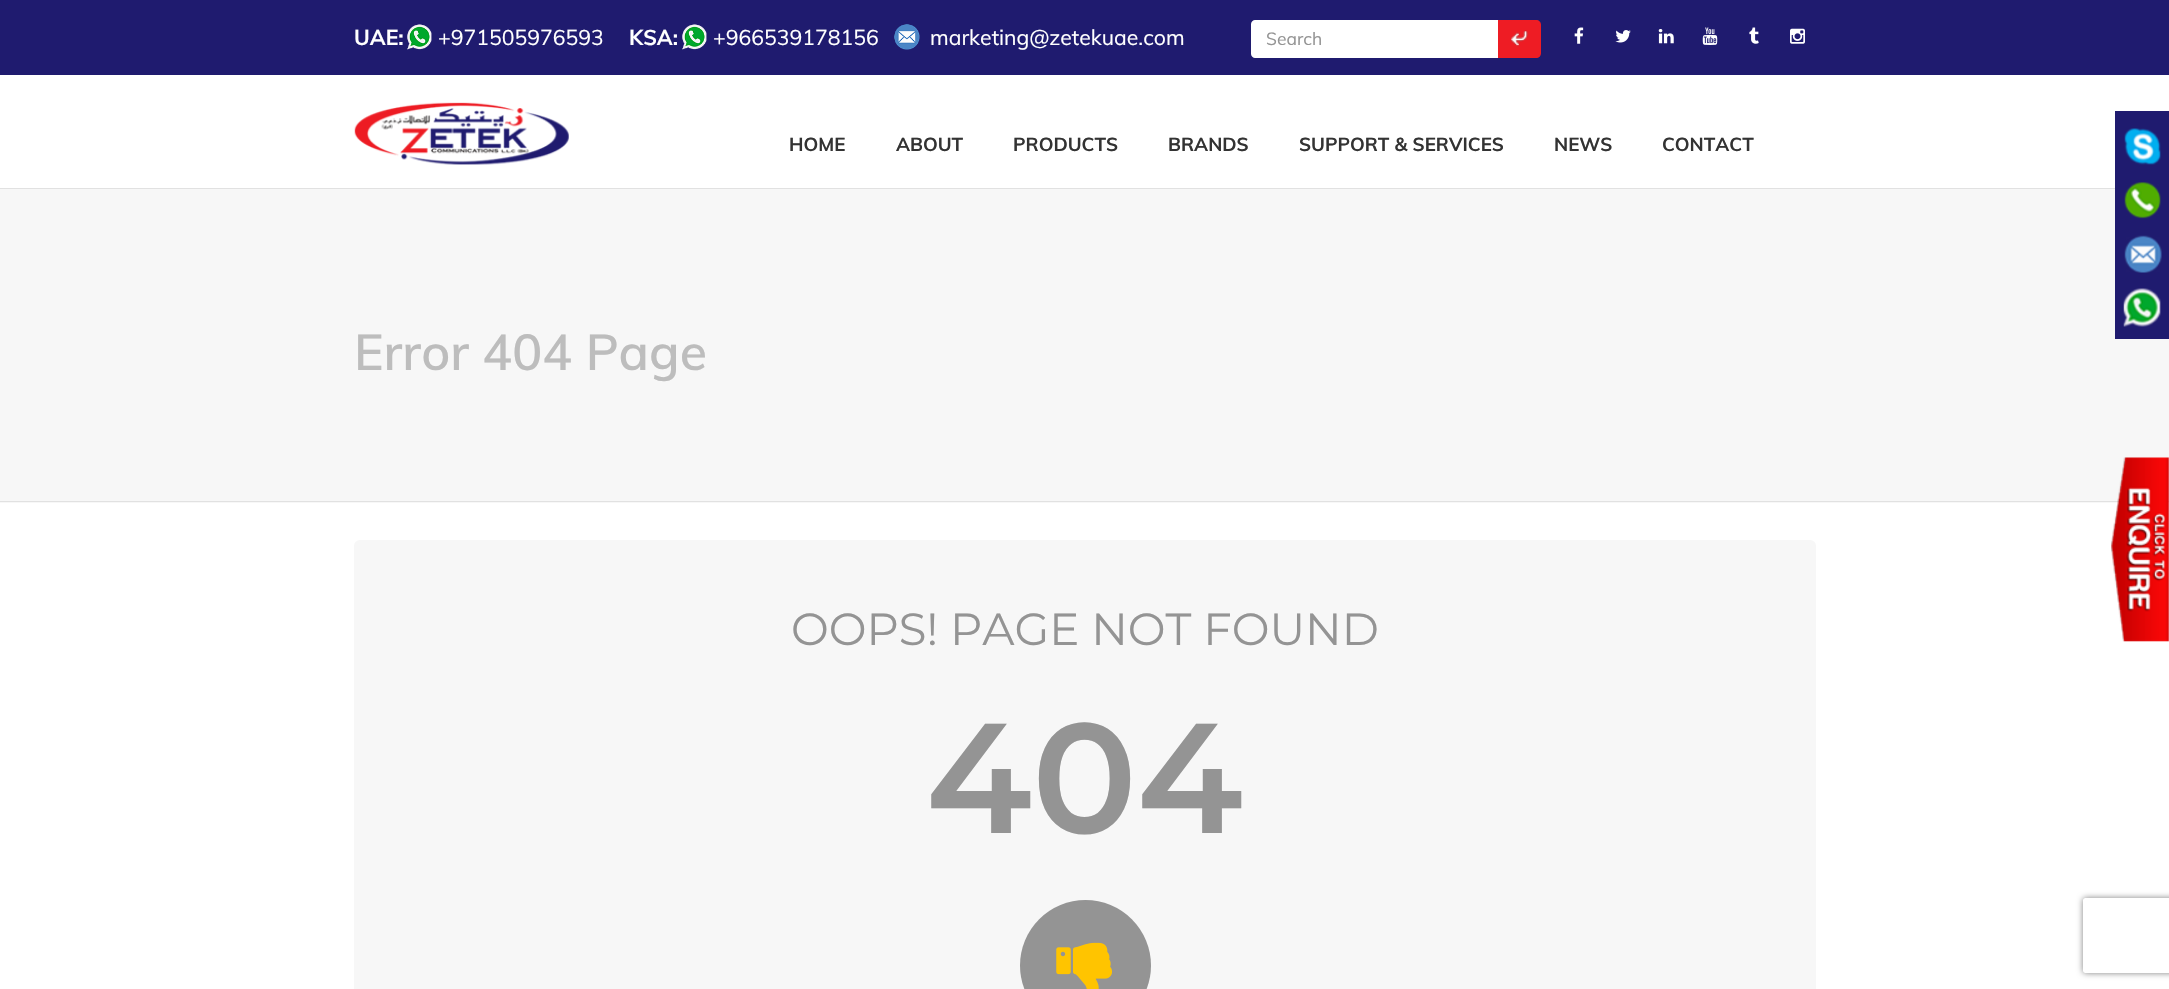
#include "include/core/SkBlurTypes.h"
#include "include/core/SkCanvas.h"
#include "include/core/SkData.h"
#include "include/core/SkFont.h"
#include "include/core/SkFontMgr.h"
#include "include/core/SkImage.h"
#include "include/core/SkMaskFilter.h"
#include "include/core/SkPaint.h"
#include "include/core/SkPathBuilder.h"
#include "include/core/SkTextBlob.h"
#include "include/effects/SkDashPathEffect.h"
#include "include/effects/SkGradientShader.h"
#include "include/utils/SkParsePath.h"

extern sk_sp<SkFontMgr> fontMgr;

void draw(SkCanvas* canvas) {
    SkPaint p;
    p.setAntiAlias(true);
    auto font = [&](const char* family, int weight, float size, bool italic = false) {
        SkFontStyle style(weight, SkFontStyle::kNormal_Width,
            italic ? SkFontStyle::kItalic_Slant : SkFontStyle::kUpright_Slant);
        SkFont result(fontMgr->matchFamilyStyle(family, style), size);
        result.setSubpixel(true);
        return result;
    };
    auto drawPhoto = [&](const char* path, float l, float t, float r, float b) {
        auto image = SkImages::DeferredFromEncodedData(SkData::MakeFromFileName(path));
        canvas->drawImageRect(image, SkRect::MakeLTRB(l, t, r, b), SkSamplingOptions());
    };
    canvas->clear(0xFFFFFFFF);
    p.setColor(0xFF1F1B6F);
    canvas->drawRect(SkRect::MakeLTRB(0, 0, 2169, 75), p);
    auto font1 = font("Muli", 700, 21.25f);
    p.setColor(0xFFFFFFFF);
    canvas->drawString("UAE:", 354, 45, font1, p);
    drawPhoto("media/1.png", 407, 24, 432, 50);
    auto font2 = font("Muli", 400, 21.25f);
    canvas->drawString("+971505976593", 438, 45, font2, p);
    canvas->drawString("KSA:", 629, 45, font1, p);
    drawPhoto("media/1.png", 682, 24, 707, 50);
    canvas->drawString("+966539178156", 713, 45, font2, p);
    drawPhoto("media/2.png", 894, 24, 920, 50);
    canvas->drawString("marketing@zetekuae.com", 930, 45, font2, p);
    canvas->drawPath(SkPathBuilder().moveTo(1255, 20).lineTo(1498, 20).lineTo(1498, 58).lineTo(1255, 58).cubicTo(1253, 58, 1251, 56, 1251, 54).lineTo(1251, 24).cubicTo(1251, 22, 1253, 20, 1255, 20).close().detach(), p);
    auto font3 = font("Muli", 400, 17.5f);
    p.setColor(0xFF949494);
    canvas->drawString("Search", 1266, 45, font3, p);
    p.setColor(0xFFEE1C24);
    canvas->drawPath(SkPathBuilder().moveTo(1498, 20).lineTo(1536, 20).cubicTo(1539, 20, 1541, 22, 1541, 25).lineTo(1541, 53).cubicTo(1541, 56, 1539, 58, 1536, 58).lineTo(1498, 58).close().detach(), p);
    drawPhoto("media/3.png", 1511, 30, 1528, 47);
    drawPhoto("media/4.png", 1574, 27, 1584, 44);
    drawPhoto("media/5.png", 1615, 30, 1631, 43);
    drawPhoto("media/6.png", 1658, 29, 1674, 44);
    drawPhoto("media/7.png", 1702, 27, 1718, 45);
    drawPhoto("media/8.png", 1749, 27, 1759, 44);
    drawPhoto("media/9.png", 1790, 28, 1805, 44);
    drawPhoto("media/10.png", 354, 102, 569, 165);
    auto font4 = font("Muli", 700, 18.75f);
    p.setColor(0xFF333333);
    {
        const struct { const char* s; float x, y; } items[] = {
            {"HOME", 789, 151},
            {"ABOUT", 896, 151},
            {"PRODUCTS", 1013, 151},
            {"BRANDS", 1168, 151},
            {"SUPPORT & SERVICES", 1299, 151},
            {"NEWS", 1554, 151},
            {"CONTACT", 1662, 151},
        };
        for (auto [s, x, y] : items) {
            canvas->drawString(s, x, y, font4, p);
        }
    }
    p.setColor(0xFFF7F7F7);
    canvas->drawRect(SkRect::MakeLTRB(0, 189, 2169, 503), p);
    p.setColor(0xFF1F1B6F);
    canvas->drawRect(SkRect::MakeLTRB(2115, 111, 2169, 339), p);
    drawPhoto("media/11.png", 2124, 128, 2161, 165);
    drawPhoto("media/12.png", 2124, 182, 2161, 219);
    drawPhoto("media/13.png", 2124, 235, 2162, 273);
    drawPhoto("media/14.png", 2123, 288, 2161, 327);
    p.setColor(0xFFE1E1E1);
    canvas->drawRect(SkRect::MakeLTRB(0, 188, 2115, 189), p);
    canvas->drawRect(SkRect::MakeLTRB(0, 501, 2169, 502), p);
    auto font5 = font("Muli", 600, 50);
    p.setColor(0xFFBDBDBD);
    canvas->drawString("Error 404 Page", 354, 370, font5, p);
    p.setColor(0xFFF7F7F7);
    canvas->drawRoundRect(SkRect::MakeLTRB(354, 540, 1816, 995), 6, 6, p);
    auto font6 = font("Montserrat", 400, 45);
    p.setColor(0xFF949494);
    canvas->drawString("OOPS! PAGE NOT FOUND", 791, 645, font6, p);
    auto font7 = font("Montserrat", 600, 156);
    canvas->drawString("404", 926, 833, font7, p);
    canvas->drawCircle(1085.5f, 965.5f, 65.5f, p);
    drawPhoto("media/15.png", 1056, 942, 1112, 989);
    drawPhoto("media/16.png", 2111, 457, 2169, 642);
    canvas->save();
    canvas->clipPath(SkPathBuilder(SkPathFillType::kEvenOdd).moveTo(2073, 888).lineTo(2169, 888).lineTo(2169, 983).lineTo(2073, 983).close().moveTo(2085.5f, 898).lineTo(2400.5f, 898).cubicTo(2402, 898, 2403, 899, 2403, 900.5f).lineTo(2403, 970.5f).cubicTo(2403, 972, 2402, 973, 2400.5f, 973).lineTo(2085.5f, 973).cubicTo(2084, 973, 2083, 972, 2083, 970.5f).lineTo(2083, 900.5f).cubicTo(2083, 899, 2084, 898, 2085.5f, 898).close().detach(), true);
    p.setColor(0xFF808080);
    p.setMaskFilter(SkMaskFilter::MakeBlur(kNormal_SkBlurStyle, 3));
    canvas->drawRoundRect(SkRect::MakeLTRB(2083, 898, 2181, 973), 2.5f, 2.5f, p);
    p.setMaskFilter(nullptr);
    canvas->restore();
}
